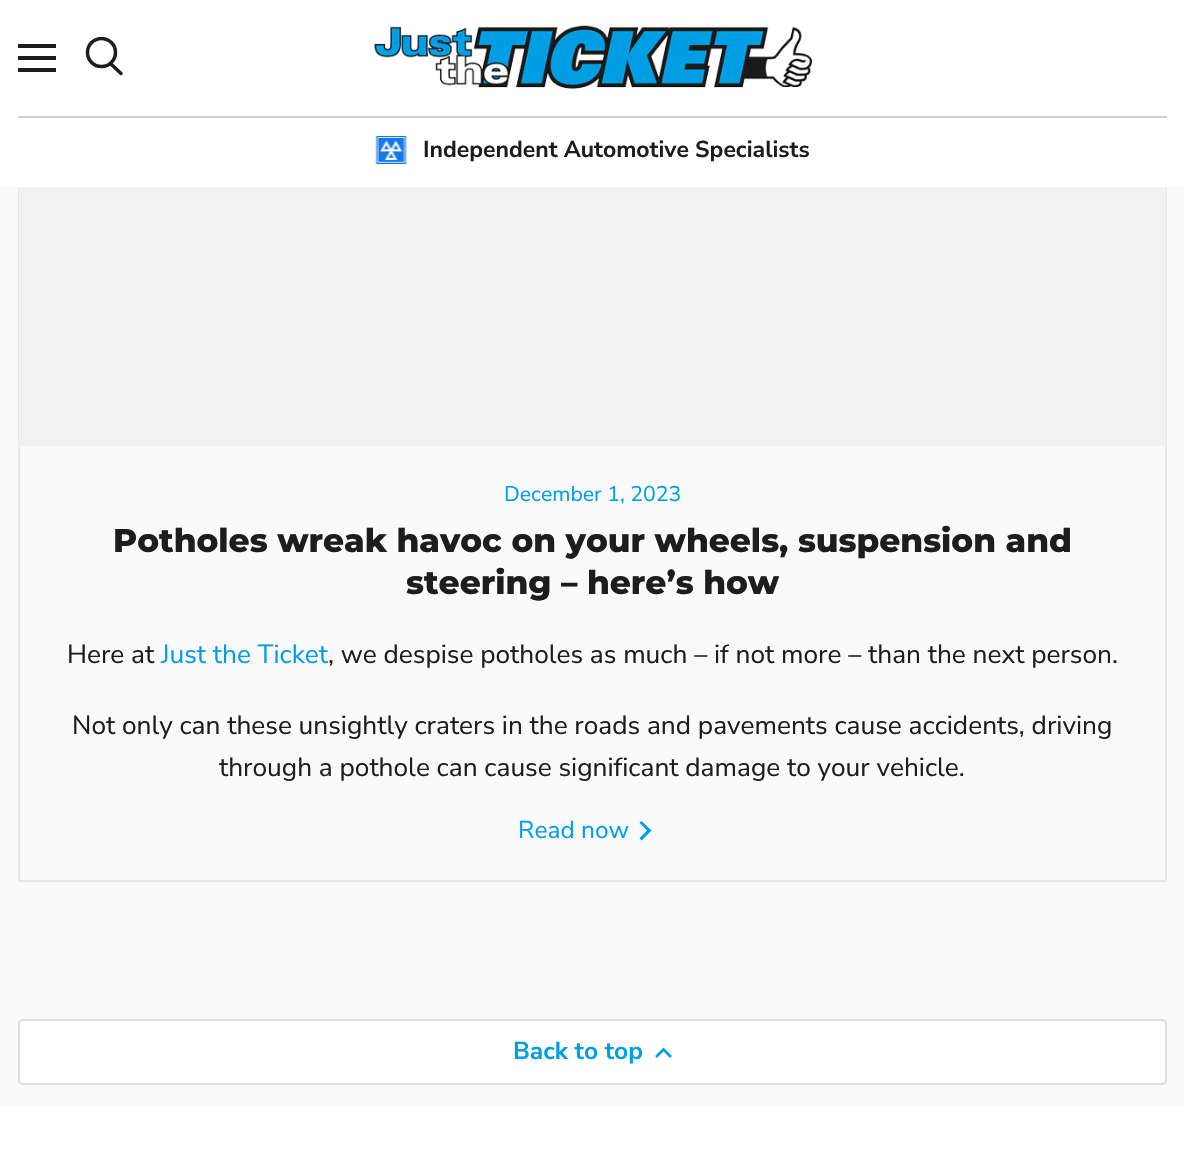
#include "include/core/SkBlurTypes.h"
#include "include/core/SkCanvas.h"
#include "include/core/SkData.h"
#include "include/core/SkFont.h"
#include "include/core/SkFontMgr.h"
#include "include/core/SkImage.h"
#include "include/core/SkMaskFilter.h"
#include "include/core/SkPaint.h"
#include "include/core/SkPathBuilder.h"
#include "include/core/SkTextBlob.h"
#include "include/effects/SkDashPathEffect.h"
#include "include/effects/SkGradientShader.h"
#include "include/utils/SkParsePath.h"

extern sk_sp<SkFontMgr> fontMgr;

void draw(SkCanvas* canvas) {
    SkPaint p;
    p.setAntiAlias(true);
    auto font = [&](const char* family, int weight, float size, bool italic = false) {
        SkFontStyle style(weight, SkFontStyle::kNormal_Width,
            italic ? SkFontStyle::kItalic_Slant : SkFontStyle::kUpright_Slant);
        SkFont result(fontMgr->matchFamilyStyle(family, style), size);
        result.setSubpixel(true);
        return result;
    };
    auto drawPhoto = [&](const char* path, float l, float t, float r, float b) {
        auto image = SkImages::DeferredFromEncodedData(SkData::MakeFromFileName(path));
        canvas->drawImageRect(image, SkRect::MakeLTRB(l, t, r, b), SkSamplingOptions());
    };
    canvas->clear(0xFFFAFAFA);
    p.setStyle(SkPaint::kStroke_Style);
    p.setStrokeWidth(2);
    p.setColor(0xFFE6E6E6);
    canvas->drawRect(SkRect::MakeLTRB(19, 96, 1166, 881), p);
    p.setStyle(SkPaint::kFill_Style);
    {
        const struct { float l, t, r, b; SkColor color; } items[] = {
            {0, 0, 1184, 187, 0xFFFFFFFF},
            {18, 44, 56, 48, 0xFF1D1D1D},
            {18, 56, 56, 60, 0xFF1D1D1D},
            {18, 68, 56, 72, 0xFF1D1D1D},
        };
        for (auto [l, t, r, b, color] : items) {
            p.setColor(color);
            canvas->drawRect(SkRect::MakeLTRB(l, t, r, b), p);
        }
    }
    p.setStyle(SkPaint::kStroke_Style);
    p.setStrokeWidth(3.5f);
    p.setStrokeCap(SkPaint::kRound_Cap);
    canvas->drawPath(SkPathBuilder().moveTo(121, 73.5f).lineTo(111, 64).detach(), p);
    canvas->save();
    canvas->clipRect(SkRect::MakeLTRB(84, 37, 124, 79));
    p.setStrokeCap(SkPaint::kButt_Cap);
    canvas->drawCircle(101.5f, 52.5f, 14, p);
    canvas->restore();
    drawPhoto("media/1.png", 374, 25, 812, 89);
    p.setStyle(SkPaint::kFill_Style);
    p.setColor(0xFFD2D2D2);
    canvas->drawRect(SkRect::MakeLTRB(18, 116, 1167, 118), p);
    drawPhoto("media/2.png", 375, 136, 407, 164);
    auto font1 = font("Nunito Sans", 700, 23);
    p.setColor(0xFF1D1D1D);
    canvas->drawString("Independent Automotive Specialists", 423, 157, font1, p);
    p.setColor(0xFFF1F1F1);
    canvas->drawRect(SkRect::MakeLTRB(19, 187, 1166, 446), p);
    auto font2 = font("Nunito Sans", 400, 21.25f);
    p.setColor(0xFF009EE3);
    canvas->drawString("December 1, 2023", 504, 501, font2, p);
    auto font3 = font("Montserrat", 800, 32.8f);
    p.setColor(0xFF1D1D1D);
    canvas->drawString("Potholes wreak havoc on your wheels, suspension and", 113, 552, font3, p);
    canvas->drawString("steering – here’s how", 406, 594, font3, p);
    auto font4 = font("Nunito Sans", 400, 26.25f);
    canvas->drawString("Here at", 67, 663, font4, p);
    p.setColor(0xFF009EE3);
    canvas->drawString("Just the Ticket", 161, 663, font4, p);
    p.setColor(0xFF1D1D1D);
    {
        const struct { const char* s; float x, y; } items[] = {
            {", we despise potholes as much – if not more – than the next person.", 328, 663},
            {"Not only can these unsightly craters in the roads and pavements cause accidents, driving", 72, 734},
            {"through a pothole can cause significant damage to your vehicle.", 219, 776},
        };
        for (auto [s, x, y] : items) {
            canvas->drawString(s, x, y, font4, p);
        }
    }
    auto font5 = font("Nunito Sans", 400, 24.5f);
    p.setColor(0xFF009EE3);
    canvas->drawString("Read now", 518, 838, font5, p);
    canvas->drawPath(SkPathBuilder(SkPathFillType::kEvenOdd).moveTo(647, 830.5f).lineTo(639.5f, 823).lineTo(641.5f, 821).lineTo(651.5f, 830.5f).lineTo(641.5f, 840.5f).lineTo(639.5f, 838).close().detach(), p);
    p.setColor(0xFFFFFFFF);
    canvas->drawRoundRect(SkRect::MakeLTRB(19, 1020, 1166, 1084), 4, 4, p);
    p.setStyle(SkPaint::kStroke_Style);
    p.setStrokeWidth(2);
    p.setColor(0xFFDDDDDD);
    canvas->drawRoundRect(SkRect::MakeLTRB(19, 1020, 1166, 1084), 4, 4, p);
    auto font6 = font("Nunito Sans", 700, 24.5f);
    p.setStyle(SkPaint::kFill_Style);
    p.setColor(0xFF009EE3);
    canvas->drawString("Back to top", 513, 1059, font6, p);
    p.setStyle(SkPaint::kStroke_Style);
    p.setStrokeWidth(2.7f);
    p.setStrokeCap(SkPaint::kSquare_Cap);
    canvas->drawPath(SkPathBuilder().moveTo(663.5f, 1049.5f).lineTo(657, 1056).moveTo(663.5f, 1049.5f).lineTo(670, 1056).detach(), p);
    p.setStyle(SkPaint::kFill_Style);
    p.setColor(0xFFFFFFFF);
    canvas->drawRect(SkRect::MakeLTRB(0, 1106, 1184, 1174), p);
}
